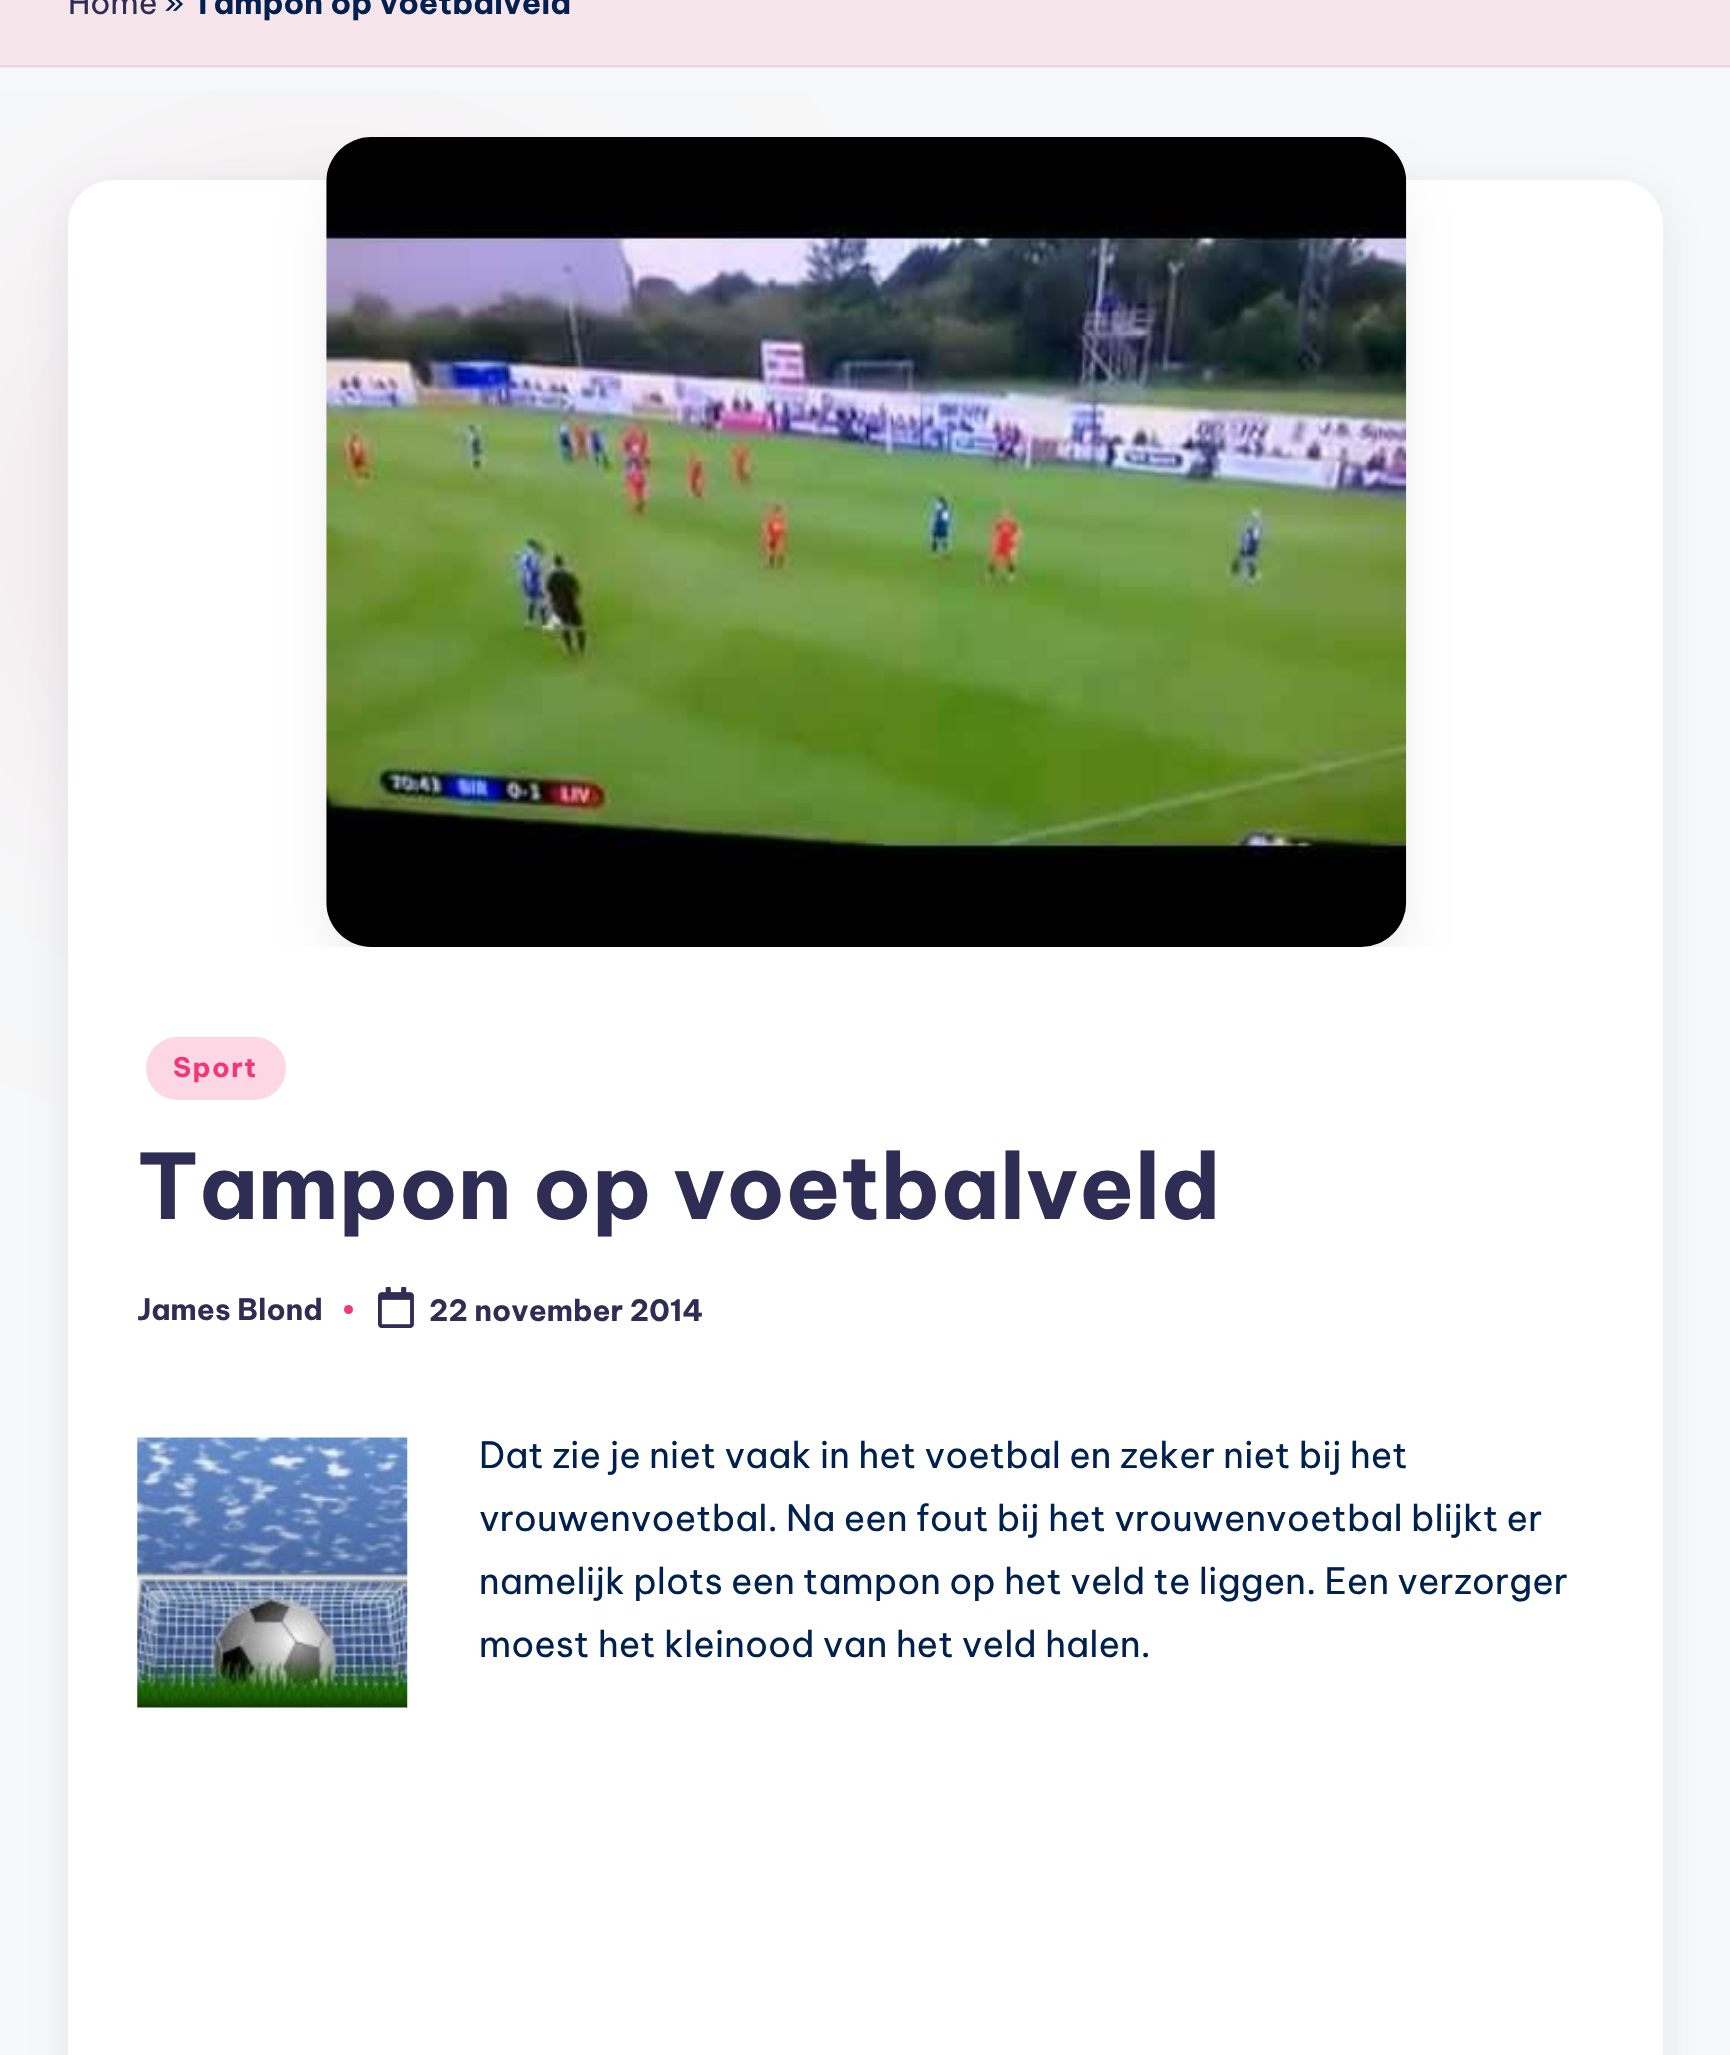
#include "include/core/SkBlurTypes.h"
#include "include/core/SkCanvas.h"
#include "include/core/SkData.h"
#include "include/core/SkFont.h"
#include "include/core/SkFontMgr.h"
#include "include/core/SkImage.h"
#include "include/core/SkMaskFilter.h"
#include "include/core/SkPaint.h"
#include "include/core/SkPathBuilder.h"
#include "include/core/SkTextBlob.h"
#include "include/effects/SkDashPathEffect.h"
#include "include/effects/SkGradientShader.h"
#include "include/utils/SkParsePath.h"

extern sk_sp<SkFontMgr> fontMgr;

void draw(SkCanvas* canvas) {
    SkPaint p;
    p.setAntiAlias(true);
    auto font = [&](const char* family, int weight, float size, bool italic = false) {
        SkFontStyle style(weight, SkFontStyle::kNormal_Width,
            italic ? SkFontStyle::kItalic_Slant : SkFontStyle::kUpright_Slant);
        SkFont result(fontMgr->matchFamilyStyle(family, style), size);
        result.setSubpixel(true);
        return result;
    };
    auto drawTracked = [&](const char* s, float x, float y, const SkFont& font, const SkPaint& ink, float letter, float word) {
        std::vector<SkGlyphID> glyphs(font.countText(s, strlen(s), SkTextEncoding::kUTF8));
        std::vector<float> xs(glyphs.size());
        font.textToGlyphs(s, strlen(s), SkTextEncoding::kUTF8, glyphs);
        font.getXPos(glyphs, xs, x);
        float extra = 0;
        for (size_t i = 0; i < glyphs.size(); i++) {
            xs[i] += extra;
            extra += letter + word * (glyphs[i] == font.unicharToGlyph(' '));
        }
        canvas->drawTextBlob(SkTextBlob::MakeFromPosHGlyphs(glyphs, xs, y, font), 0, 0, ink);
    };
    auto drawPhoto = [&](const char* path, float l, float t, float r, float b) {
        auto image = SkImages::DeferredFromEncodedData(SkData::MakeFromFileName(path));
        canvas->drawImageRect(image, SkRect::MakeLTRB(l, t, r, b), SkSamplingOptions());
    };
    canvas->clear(0xFFF7F8F9);
    canvas->save();
    canvas->clipRect(SkRect::MakeLTRB(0, 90, 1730, 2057));
    p.setColor(0xFFF4E5E8);
    p.setMaskFilter(SkMaskFilter::MakeBlur(kNormal_SkBlurStyle, 144));
    canvas->drawRoundRect(SkRect::MakeLTRB(0, 203, 648, 851), 324, 324, p);
    p.setMaskFilter(nullptr);
    canvas->restore();
    p.setColor(0xFFF7E5EC);
    canvas->drawRect(SkRect::MakeLTRB(0, 0, 1730, 68), p);
    p.setColor(0xFFE7D7DD);
    canvas->drawRect(SkRect::MakeLTRB(0, 65, 1730, 67), p);
    auto font1 = font("Be Vietnam Pro", 400, 31.5f);
    p.setColor(0xFF302D55);
    canvas->drawString("Home", 68, 14, font1, p);
    p.setColor(0xFF002050);
    canvas->drawString("»", 164, 14, font1, p);
    auto font2 = font("Be Vietnam Pro", 700, 31.5f);
    canvas->drawString("Tampon op voetbalveld", 192, 14, font2, p);
    p.setColor(0x1A454360);
    p.setMaskFilter(SkMaskFilter::MakeBlur(kNormal_SkBlurStyle, 22.5f));
    canvas->drawRoundRect(SkRect::MakeLTRB(68, 191, 1663, 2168), 45, 45, p);
    p.setMaskFilter(nullptr);
    p.setColor(0xFFFFFFFF);
    canvas->drawRoundRect(SkRect::MakeLTRB(68, 180, 1663, 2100), 45, 45, p);
    p.setColor(0xFFFDD7E4);
    canvas->drawRoundRect(SkRect::MakeLTRB(146, 1037, 286, 1100), 31.5f, 31.5f, p);
    canvas->save();
    canvas->clipPath(SkPathBuilder().moveTo(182, 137).lineTo(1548, 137).cubicTo(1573, 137, 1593, 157, 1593, 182).lineTo(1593, 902).cubicTo(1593, 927, 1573, 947, 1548, 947).lineTo(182, 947).cubicTo(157, 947, 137, 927, 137, 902).lineTo(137, 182).cubicTo(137, 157, 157, 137, 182, 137).close().detach(), true);
    p.setColor(0x2E000000);
    p.setMaskFilter(SkMaskFilter::MakeBlur(kNormal_SkBlurStyle, 31.5f));
    canvas->drawRoundRect(SkRect::MakeLTRB(353, 200, 1379, 956), 18, 18, p);
    p.setMaskFilter(nullptr);
    canvas->restore();
    drawPhoto("media/1.png", 326, 137, 1407, 947);
    auto font3 = font("Be Vietnam Pro", 700, 27);
    p.setColor(0xFFF43676);
    drawTracked("Sport", 173, 1077, font3, p, 1.5f, 0);
    auto font4 = font("Be Vietnam Pro", 700, 90);
    p.setColor(0xFF302D55);
    canvas->drawString("Tampon op voetbalveld", 137, 1219, font4, p);
    auto font5 = font("Be Vietnam Pro", 700, 29.25f);
    canvas->drawString("James Blond", 137, 1320, font5, p);
    p.setColor(0xFFF43676);
    canvas->drawCircle(348.5f, 1309.5f, 4.5f, p);
    drawPhoto("media/2.png", 378, 1287, 414, 1328);
    p.setColor(0xFF302D55);
    canvas->drawString("22 november 2014", 429, 1321, font5, p);
    drawPhoto("media/3.png", 137, 1437, 408, 1708);
    auto font6 = font("Be Vietnam Pro", 400, 36);
    p.setColor(0xFF002050);
    {
        const struct { const char* s; float x, y; } items[] = {
            {"Dat zie je niet vaak in het voetbal en zeker niet bij het", 479, 1468},
            {"vrouwenvoetbal. Na een fout bij het vrouwenvoetbal blijkt er", 479, 1531},
            {"namelijk plots een tampon op het veld te liggen. Een verzorger", 479, 1594},
            {"moest het kleinood van het veld halen.", 479, 1657},
        };
        for (auto [s, x, y] : items) {
            canvas->drawString(s, x, y, font6, p);
        }
    }
}
